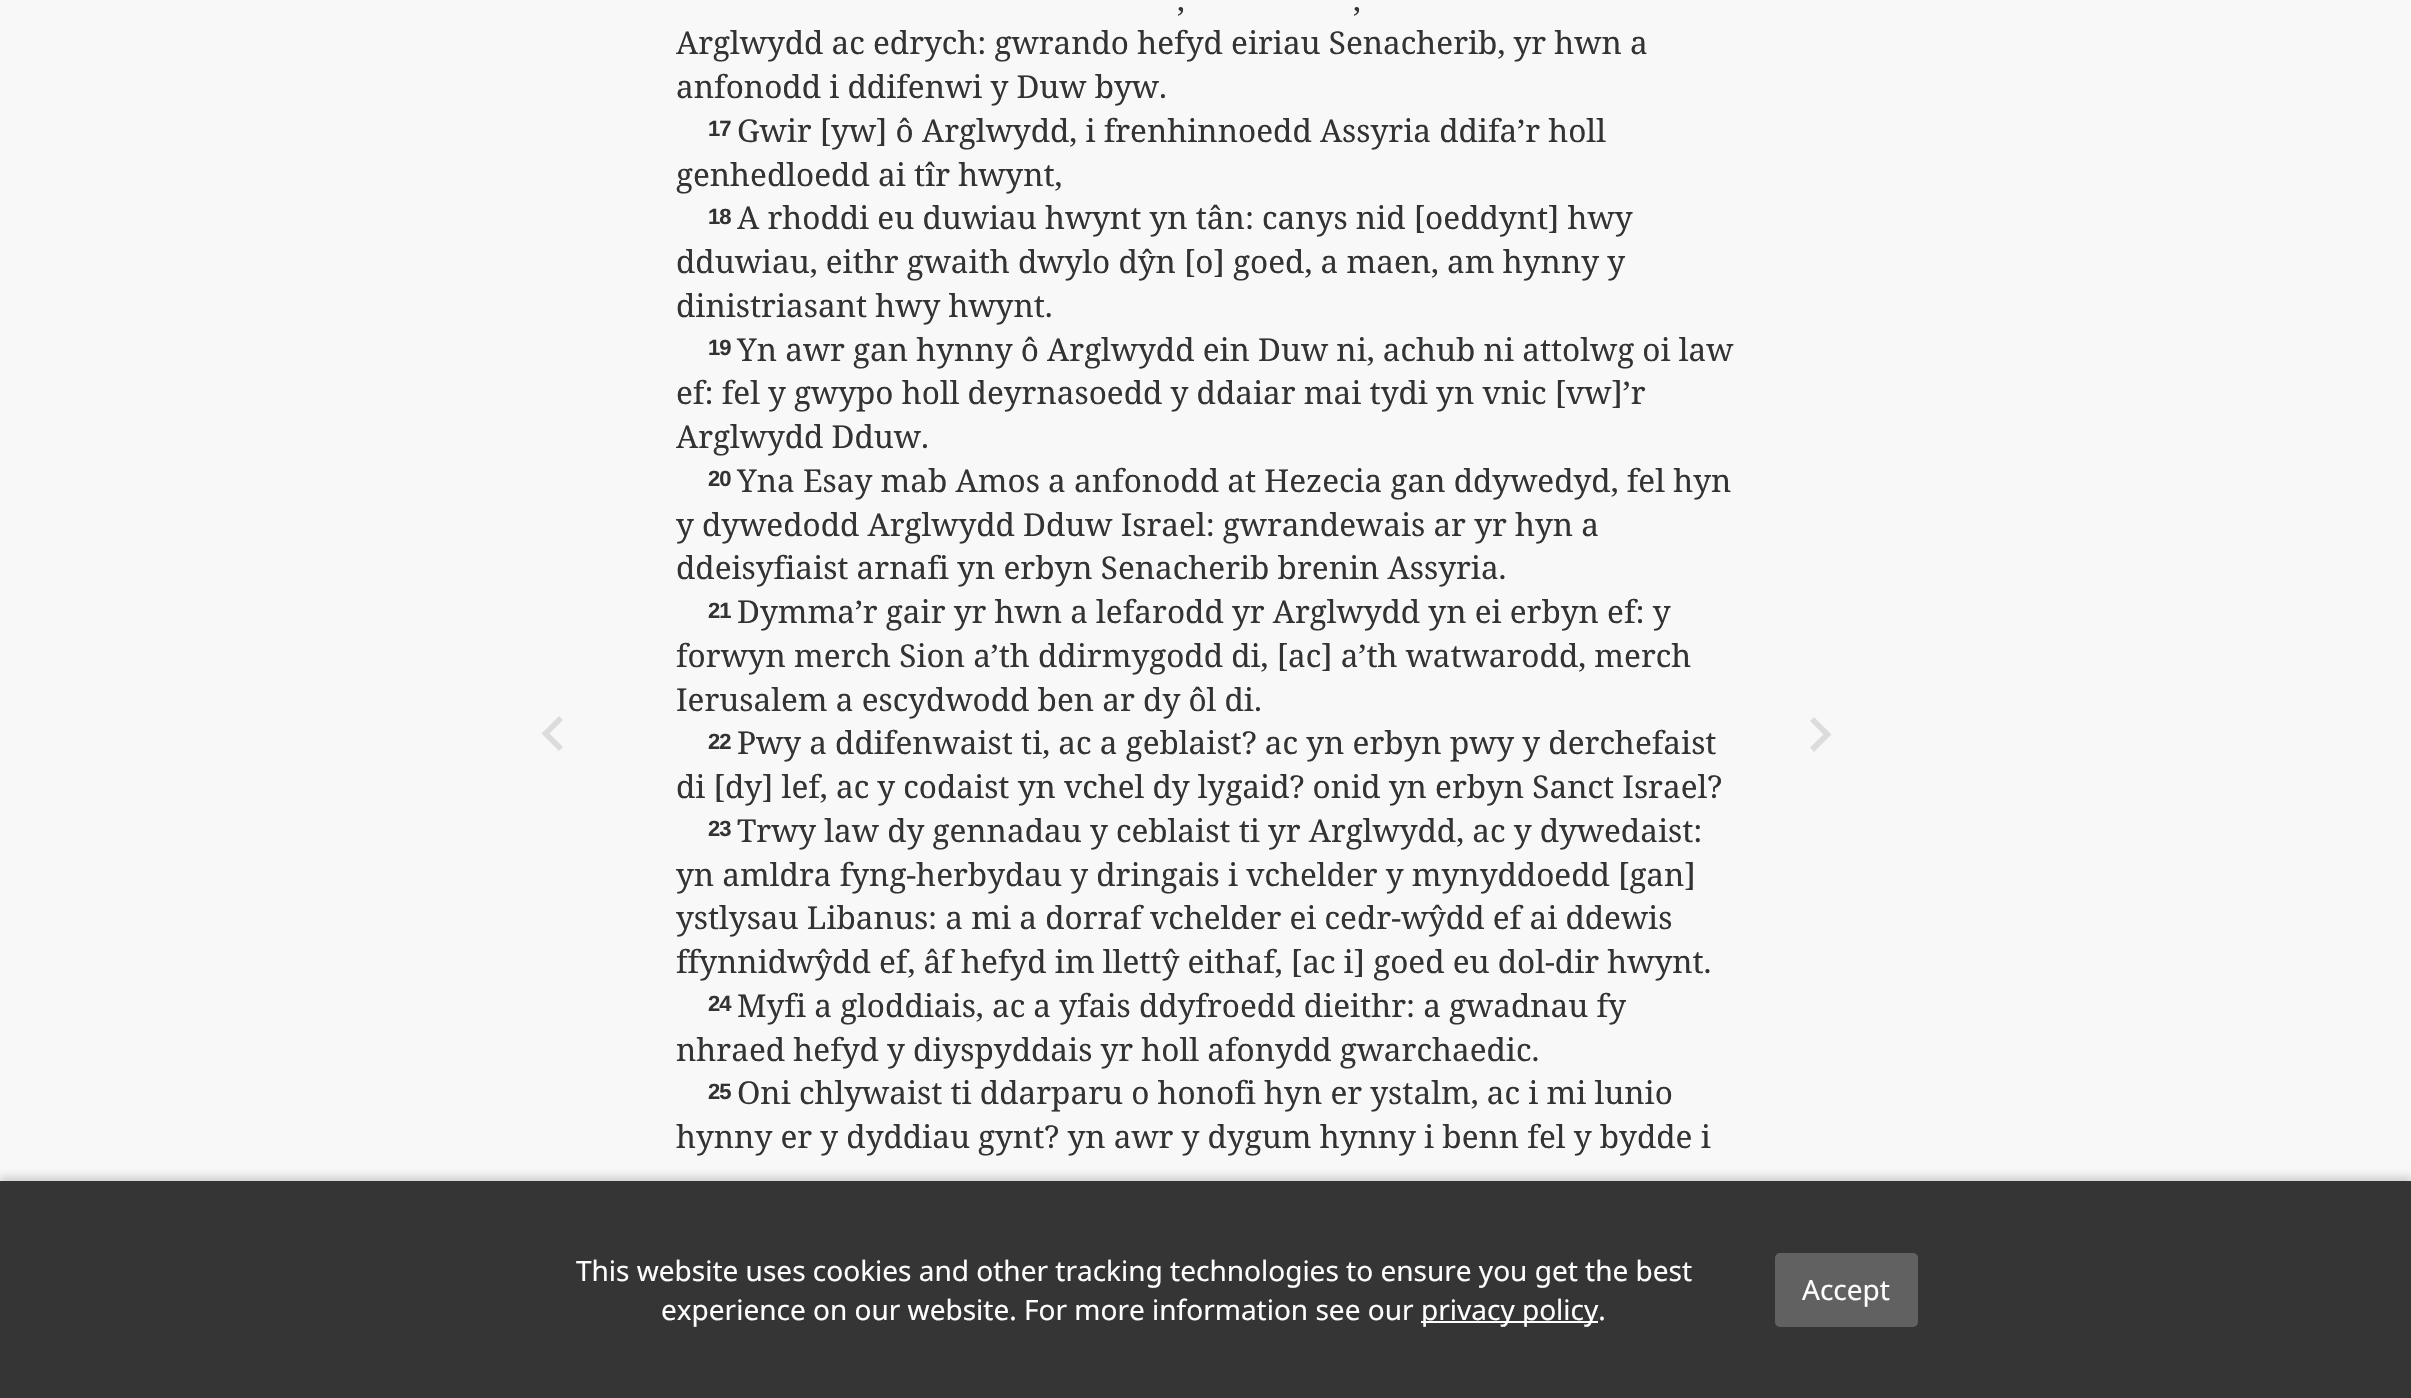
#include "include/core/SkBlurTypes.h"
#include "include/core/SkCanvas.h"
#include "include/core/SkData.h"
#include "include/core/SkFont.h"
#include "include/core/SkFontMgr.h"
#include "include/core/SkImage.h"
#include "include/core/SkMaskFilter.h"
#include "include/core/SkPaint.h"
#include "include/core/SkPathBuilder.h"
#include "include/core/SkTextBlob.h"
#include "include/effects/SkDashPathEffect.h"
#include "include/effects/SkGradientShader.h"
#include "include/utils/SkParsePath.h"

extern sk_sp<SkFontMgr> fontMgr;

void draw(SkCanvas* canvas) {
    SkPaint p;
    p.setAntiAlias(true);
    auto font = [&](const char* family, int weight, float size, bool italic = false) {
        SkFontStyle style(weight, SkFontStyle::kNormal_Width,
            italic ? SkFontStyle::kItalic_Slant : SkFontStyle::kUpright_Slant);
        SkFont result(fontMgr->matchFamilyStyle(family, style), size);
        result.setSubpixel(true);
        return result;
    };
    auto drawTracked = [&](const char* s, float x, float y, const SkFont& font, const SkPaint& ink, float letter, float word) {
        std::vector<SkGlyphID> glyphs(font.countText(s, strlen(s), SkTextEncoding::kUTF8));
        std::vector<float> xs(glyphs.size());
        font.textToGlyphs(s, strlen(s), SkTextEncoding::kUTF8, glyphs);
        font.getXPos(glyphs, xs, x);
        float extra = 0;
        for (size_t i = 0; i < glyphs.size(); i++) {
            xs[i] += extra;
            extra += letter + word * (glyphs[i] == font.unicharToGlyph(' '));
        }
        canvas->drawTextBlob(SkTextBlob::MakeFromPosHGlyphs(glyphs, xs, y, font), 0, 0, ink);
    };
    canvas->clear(0xFFF8F8F8);
    p.setColor(0xFFDCDCDC);
    canvas->drawPath(SkPathBuilder().moveTo(563, 747).lineTo(549.5f, 733.5f).lineTo(563, 720).lineTo(559, 716).lineTo(541.5f, 733.5f).lineTo(559, 751).close().detach(), p);
    auto font1 = font("Noto Serif", 400, 31.5f);
    p.setColor(0xFF333333);
    {
        const struct { const char* s; float x, y; } items[] = {
            {",", 1177, 11},
            {",", 1353, 11},
            {"Arglwydd ac edrych: gwrando hefyd eiriau Senacherib, yr hwn a", 676, 54},
            {"anfonodd i ddifenwi y Duw byw.", 676, 98},
        };
        for (auto [s, x, y] : items) {
            canvas->drawString(s, x, y, font1, p);
        }
    }
    auto font2 = font("Liberation Sans", 700, 22);
    drawTracked("17", 708, 136, font2, p, -1, 0);
    canvas->drawString("Gwir [yw] ô Arglwydd, i frenhinnoedd Assyria ddifa’r holl", 737, 142, font1, p);
    canvas->drawString("genhedloedd ai tîr hwynt,", 676, 186, font1, p);
    drawTracked("18", 708, 224, font2, p, -1, 0);
    {
        const struct { const char* s; float x, y; } items[] = {
            {"A rhoddi eu duwiau hwynt yn tân: canys nid [oeddynt] hwy", 737, 229},
            {"dduwiau, eithr gwaith dwylo dŷn [o] goed, a maen, am hynny y", 676, 273},
            {"dinistriasant hwy hwynt.", 676, 317},
        };
        for (auto [s, x, y] : items) {
            canvas->drawString(s, x, y, font1, p);
        }
    }
    drawTracked("19", 708, 355, font2, p, -1, 0);
    {
        const struct { const char* s; float x, y; } items[] = {
            {"Yn awr gan hynny ô Arglwydd ein Duw ni, achub ni attolwg oi law", 737, 361},
            {"ef: fel y gwypo holl deyrnasoedd y ddaiar mai tydi yn vnic [vw]’r", 676, 404},
            {"Arglwydd Dduw.", 676, 448},
        };
        for (auto [s, x, y] : items) {
            canvas->drawString(s, x, y, font1, p);
        }
    }
    drawTracked("20", 708, 486, font2, p, -1, 0);
    {
        const struct { const char* s; float x, y; } items[] = {
            {"Yna Esay mab Amos a anfonodd at Hezecia gan ddywedyd, fel hyn", 737, 492},
            {"y dywedodd Arglwydd Dduw Israel: gwrandewais ar yr hyn a", 676, 536},
            {"ddeisyfiaist arnafi yn erbyn Senacherib brenin Assyria.", 676, 579},
        };
        for (auto [s, x, y] : items) {
            canvas->drawString(s, x, y, font1, p);
        }
    }
    drawTracked("21", 708, 618, font2, p, -1, 0);
    {
        const struct { const char* s; float x, y; } items[] = {
            {"Dymma’r gair yr hwn a lefarodd yr Arglwydd yn ei erbyn ef: y", 737, 623},
            {"forwyn merch Sion a’th ddirmygodd di, [ac] a’th watwarodd, merch", 676, 667},
            {"Ierusalem a escydwodd ben ar dy ôl di.", 676, 711},
        };
        for (auto [s, x, y] : items) {
            canvas->drawString(s, x, y, font1, p);
        }
    }
    drawTracked("22", 708, 749, font2, p, -1, 0);
    canvas->drawString("Pwy a ddifenwaist ti, ac a geblaist? ac yn erbyn pwy y derchefaist", 737, 754, font1, p);
    canvas->drawString("di [dy] lef, ac y codaist yn vchel dy lygaid? onid yn erbyn Sanct Israel?", 676, 798, font1, p);
    drawTracked("23", 708, 836, font2, p, -1, 0);
    {
        const struct { const char* s; float x, y; } items[] = {
            {"Trwy law dy gennadau y ceblaist ti yr Arglwydd, ac y dywedaist:", 737, 842},
            {"yn amldra fyng-herbydau y dringais i vchelder y mynyddoedd [gan]", 676, 886},
            {"ystlysau Libanus: a mi a dorraf vchelder ei cedr-wŷdd ef ai ddewis", 676, 929},
            {"ffynnidwŷdd ef, âf hefyd im llettŷ eithaf, [ac i] goed eu dol-dir hwynt.", 676, 973},
        };
        for (auto [s, x, y] : items) {
            canvas->drawString(s, x, y, font1, p);
        }
    }
    drawTracked("24", 708, 1011, font2, p, -1, 0);
    canvas->drawString("Myfi a gloddiais, ac a yfais ddyfroedd dieithr: a gwadnau fy", 737, 1017, font1, p);
    canvas->drawString("nhraed hefyd y diyspyddais yr holl afonydd gwarchaedic.", 676, 1061, font1, p);
    drawTracked("25", 708, 1099, font2, p, -1, 0);
    canvas->drawString("Oni chlywaist ti ddarparu o honofi hyn er ystalm, ac i mi lunio", 737, 1104, font1, p);
    canvas->drawString("hynny er y dyddiau gynt? yn awr y dygum hynny i benn fel y bydde i", 676, 1148, font1, p);
    p.setColor(0xFFDCDCDC);
    canvas->drawPath(SkPathBuilder().moveTo(1810, 747.5f).lineTo(1823.5f, 734.5f).lineTo(1810, 721).lineTo(1814, 717).lineTo(1831.5f, 734.5f).lineTo(1814, 752).close().detach(), p);
    p.setColor(0x26000000);
    p.setMaskFilter(SkMaskFilter::MakeBlur(kNormal_SkBlurStyle, 3.5f));
    canvas->drawRect(SkRect::MakeLTRB(0, 1176, 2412, 1393), p);
    p.setMaskFilter(nullptr);
    p.setColor(0xFF353535);
    canvas->drawRect(SkRect::MakeLTRB(0, 1181, 2411, 1398), p);
    auto font3 = font("Noto Sans", 400, 28);
    p.setColor(0xFFFFFFFF);
    canvas->drawString("This website uses cookies and other tracking technologies to ensure you get the best", 576, 1281, font3, p);
    canvas->drawString("experience on our website. For more information see our", 661, 1320, font3, p);
    canvas->drawRect(SkRect::MakeLTRB(1421, 1321, 1598, 1323), p);
    canvas->drawString("privacy policy.", 1421, 1320, font3, p);
    p.setColor(0xFF616161);
    canvas->drawRoundRect(SkRect::MakeLTRB(1775, 1253, 1918, 1327), 5, 5, p);
    p.setColor(0xFFFFFFFF);
    canvas->drawString("Accept", 1802, 1300, font3, p);
}
